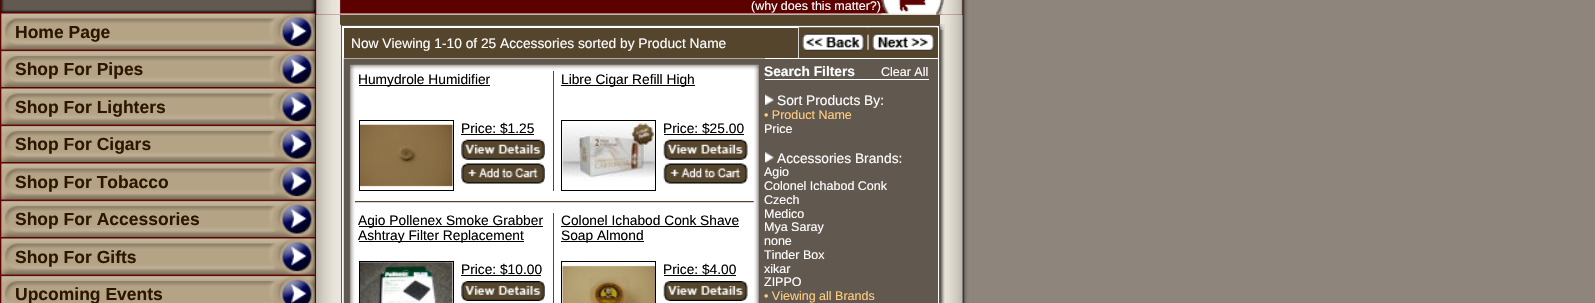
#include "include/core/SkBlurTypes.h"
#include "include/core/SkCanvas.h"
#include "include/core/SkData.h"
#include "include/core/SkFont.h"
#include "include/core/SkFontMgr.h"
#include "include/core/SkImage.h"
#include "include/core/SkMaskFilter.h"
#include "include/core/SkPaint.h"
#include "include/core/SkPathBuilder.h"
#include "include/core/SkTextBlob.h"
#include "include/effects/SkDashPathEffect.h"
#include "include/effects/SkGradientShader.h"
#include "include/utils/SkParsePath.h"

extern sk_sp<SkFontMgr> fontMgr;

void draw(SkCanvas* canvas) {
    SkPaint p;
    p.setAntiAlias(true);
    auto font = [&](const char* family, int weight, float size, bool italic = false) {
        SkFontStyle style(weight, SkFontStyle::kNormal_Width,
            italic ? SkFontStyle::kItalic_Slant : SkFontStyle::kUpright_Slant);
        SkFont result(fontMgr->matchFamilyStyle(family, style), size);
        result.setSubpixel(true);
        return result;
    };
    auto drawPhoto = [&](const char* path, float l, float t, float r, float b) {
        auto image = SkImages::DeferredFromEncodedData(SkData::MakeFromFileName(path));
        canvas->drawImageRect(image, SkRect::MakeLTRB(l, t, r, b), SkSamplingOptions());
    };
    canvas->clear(0xFFFFFFFF);
    p.setColor(0xFF5C0100);
    canvas->drawRect(SkRect::MakeLTRB(0, 12, 316, 303), p);
    drawPhoto("media/1.png", 0, 0, 316, 13);
    drawPhoto("media/2.png", 1, 12, 317, 50);
    drawPhoto("media/3.png", 1, 12, 317, 50);
    auto font1 = font("Liberation Sans", 700, 17.5f);
    p.setColor(0xFF2C1600);
    canvas->drawString("Home Page", 15, 38, font1, p);
    drawPhoto("media/4.png", 1, 49, 317, 88);
    drawPhoto("media/5.png", 1, 49, 317, 88);
    canvas->drawString("Shop For Pipes", 15, 75, font1, p);
    drawPhoto("media/6.png", 1, 87, 317, 125);
    drawPhoto("media/7.png", 1, 87, 317, 125);
    canvas->drawString("Shop For Lighters", 15, 113, font1, p);
    drawPhoto("media/4.png", 1, 124, 317, 163);
    drawPhoto("media/5.png", 1, 124, 317, 163);
    canvas->drawString("Shop For Cigars", 15, 150, font1, p);
    drawPhoto("media/6.png", 1, 162, 317, 200);
    drawPhoto("media/7.png", 1, 162, 317, 200);
    canvas->drawString("Shop For Tobacco", 15, 188, font1, p);
    drawPhoto("media/4.png", 1, 199, 317, 238);
    drawPhoto("media/5.png", 1, 199, 317, 238);
    canvas->drawString("Shop For Accessories", 15, 225, font1, p);
    drawPhoto("media/6.png", 1, 237, 317, 275);
    drawPhoto("media/7.png", 1, 237, 317, 275);
    canvas->drawString("Shop For Gifts", 15, 263, font1, p);
    drawPhoto("media/8.png", 1, 274, 317, 303);
    drawPhoto("media/9.png", 1, 274, 317, 303);
    canvas->drawString("Upcoming Events", 15, 300, font1, p);
    drawPhoto("media/10.png", 316, 15, 963, 303);
    p.setColor(0xFF5C0100);
    canvas->drawRect(SkRect::MakeLTRB(316, 0, 963, 15), p);
    drawPhoto("media/11.png", 316, 0, 963, 15);
    auto font2 = font("Liberation Sans", 400, 12.5f);
    p.setColor(0xFFFFFFFF);
    canvas->drawString("(why does this matter?)", 751, 10, font2, p);
    drawPhoto("media/12.png", 881, 0, 943, 15);
    p.setColor(0xFF55452C);
    canvas->drawRect(SkRect::MakeLTRB(341, 15, 939, 25), p);
    drawPhoto("media/13.png", 340, 14, 342, 25);
    drawPhoto("media/14.png", 938, 14, 940, 25);
    p.setColor(0xFFFFFFFF);
    canvas->drawRect(SkRect::MakeLTRB(341.5f, 25.5f, 939.5f, 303.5f), p);
    p.setStyle(SkPaint::kStroke_Style);
    p.setStrokeWidth(1);
    p.setColor(0xFF61584F);
    canvas->drawRect(SkRect::MakeLTRB(341.5f, 25.5f, 939.5f, 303.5f), p);
    p.setStyle(SkPaint::kFill_Style);
    p.setColor(0xFF55452C);
    canvas->drawRect(SkRect::MakeLTRB(344, 28, 938, 58), p);
    p.setColor(0xFFFFFFFF);
    canvas->drawRect(SkRect::MakeLTRB(798, 28, 799, 58), p);
    drawPhoto("media/15.png", 798, 27, 868, 58);
    drawPhoto("media/16.png", 867, 27, 869, 50);
    drawPhoto("media/17.png", 868, 27, 938, 51);
    auto font3 = font("Liberation Sans", 400, 13.75f);
    canvas->drawString("Now Viewing 1-10 of 25 Accessories sorted by Product Name", 351, 48, font3, p);
    drawPhoto("media/18.png", 343, 58, 765, 71);
    drawPhoto("media/19.png", 343, 71, 765, 303);
    p.setColor(0xFF000000);
    canvas->drawRect(SkRect::MakeLTRB(359, 85, 490, 86), p);
    canvas->drawString("Humydrole Humidifier", 358, 84, font3, p);
    p.setStyle(SkPaint::kStroke_Style);
    canvas->drawRect(SkRect::MakeLTRB(359.5f, 120.5f, 453.5f, 190.5f), p);
    drawPhoto("media/20.png", 360, 124, 453, 188);
    p.setStyle(SkPaint::kFill_Style);
    canvas->drawString("Price: $1.25", 461, 133, font3, p);
    canvas->drawRect(SkRect::MakeLTRB(461, 134, 534, 135), p);
    drawPhoto("media/21.png", 461, 139, 545, 160);
    drawPhoto("media/22.png", 461, 163, 545, 184);
    p.setColor(0xFF55452C);
    canvas->drawRect(SkRect::MakeLTRB(553, 71, 554, 191), p);
    p.setColor(0xFF000000);
    canvas->drawRect(SkRect::MakeLTRB(561, 85, 695, 86), p);
    canvas->drawString("Libre Cigar Refill High", 561, 84, font3, p);
    p.setStyle(SkPaint::kStroke_Style);
    canvas->drawRect(SkRect::MakeLTRB(561.5f, 120.5f, 655.5f, 190.5f), p);
    drawPhoto("media/23.png", 562, 121, 655, 181);
    p.setStyle(SkPaint::kFill_Style);
    canvas->drawString("Price: $25.00", 663, 133, font3, p);
    canvas->drawRect(SkRect::MakeLTRB(664, 134, 744, 135), p);
    drawPhoto("media/24.png", 663, 139, 748, 160);
    drawPhoto("media/25.png", 663, 163, 748, 184);
    drawPhoto("media/26.png", 355, 201, 754, 203);
    canvas->drawRect(SkRect::MakeLTRB(359, 226, 543, 227), p);
    canvas->drawString("Agio Pollenex Smoke Grabber", 358, 225, font3, p);
    canvas->drawRect(SkRect::MakeLTRB(359, 241, 524, 242), p);
    canvas->drawString("Ashtray Filter Replacement", 358, 240, font3, p);
    p.setStyle(SkPaint::kStroke_Style);
    canvas->drawRect(SkRect::MakeLTRB(359.5f, 261.5f, 453.5f, 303.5f), p);
    drawPhoto("media/27.png", 360, 262, 453, 303);
    p.setStyle(SkPaint::kFill_Style);
    canvas->drawString("Price: $10.00", 461, 274, font3, p);
    canvas->drawRect(SkRect::MakeLTRB(461, 275, 541, 276), p);
    drawPhoto("media/28.png", 461, 281, 545, 301);
    p.setColor(0xFF55452C);
    canvas->drawRect(SkRect::MakeLTRB(553, 213, 554, 303), p);
    p.setColor(0xFF000000);
    canvas->drawString("Colonel Ichabod Conk Shave", 561, 225, font3, p);
    canvas->drawRect(SkRect::MakeLTRB(561, 226, 739, 227), p);
    canvas->drawRect(SkRect::MakeLTRB(561, 241, 644, 242), p);
    canvas->drawString("Soap Almond", 561, 240, font3, p);
    p.setStyle(SkPaint::kStroke_Style);
    canvas->drawRect(SkRect::MakeLTRB(561.5f, 261.5f, 655.5f, 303.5f), p);
    drawPhoto("media/29.png", 562, 263, 655, 303);
    p.setStyle(SkPaint::kFill_Style);
    canvas->drawString("Price: $4.00", 663, 274, font3, p);
    canvas->drawRect(SkRect::MakeLTRB(664, 275, 736, 276), p);
    drawPhoto("media/30.png", 663, 281, 748, 301);
    p.setColor(0xFF61584F);
    canvas->drawRect(SkRect::MakeLTRB(765, 59, 938, 303), p);
    p.setColor(0xFFFFFFFF);
    canvas->drawRect(SkRect::MakeLTRB(765, 79, 929, 80), p);
    auto font4 = font("Liberation Sans", 700, 13.75f);
    canvas->drawString("Search Filters", 764, 76, font4, p);
    canvas->drawString("Clear All", 881, 76, font2, p);
    drawPhoto("media/31.png", 765, 94, 774, 105);
    canvas->drawString("Sort Products By:", 777, 105, font3, p);
    p.setColor(0xFFFFCD80);
    canvas->drawString("• Product Name", 764, 119, font2, p);
    p.setColor(0xFFFFFFFF);
    canvas->drawString("Price", 764, 133, font2, p);
    drawPhoto("media/32.png", 765, 152, 774, 163);
    canvas->drawString("Accessories Brands:", 777, 163, font3, p);
    {
        const struct { const char* s; float x, y; } items[] = {
            {"Agio", 764, 176},
            {"Colonel Ichabod Conk", 764, 190},
            {"Czech", 764, 204},
            {"Medico", 764, 218},
            {"Mya Saray", 764, 231},
            {"none", 764, 245},
            {"Tinder Box", 764, 259},
            {"xikar", 764, 273},
            {"ZIPPO", 764, 286},
        };
        for (auto [s, x, y] : items) {
            canvas->drawString(s, x, y, font2, p);
        }
    }
    p.setColor(0xFFFFCD80);
    canvas->drawString("• Viewing all Brands", 764, 300, font2, p);
    drawPhoto("media/33.png", 940, 24, 945, 303);
    drawPhoto("media/34.png", 940, 25, 944, 30);
    drawPhoto("media/35.png", 962, 0, 1595, 303);
}
